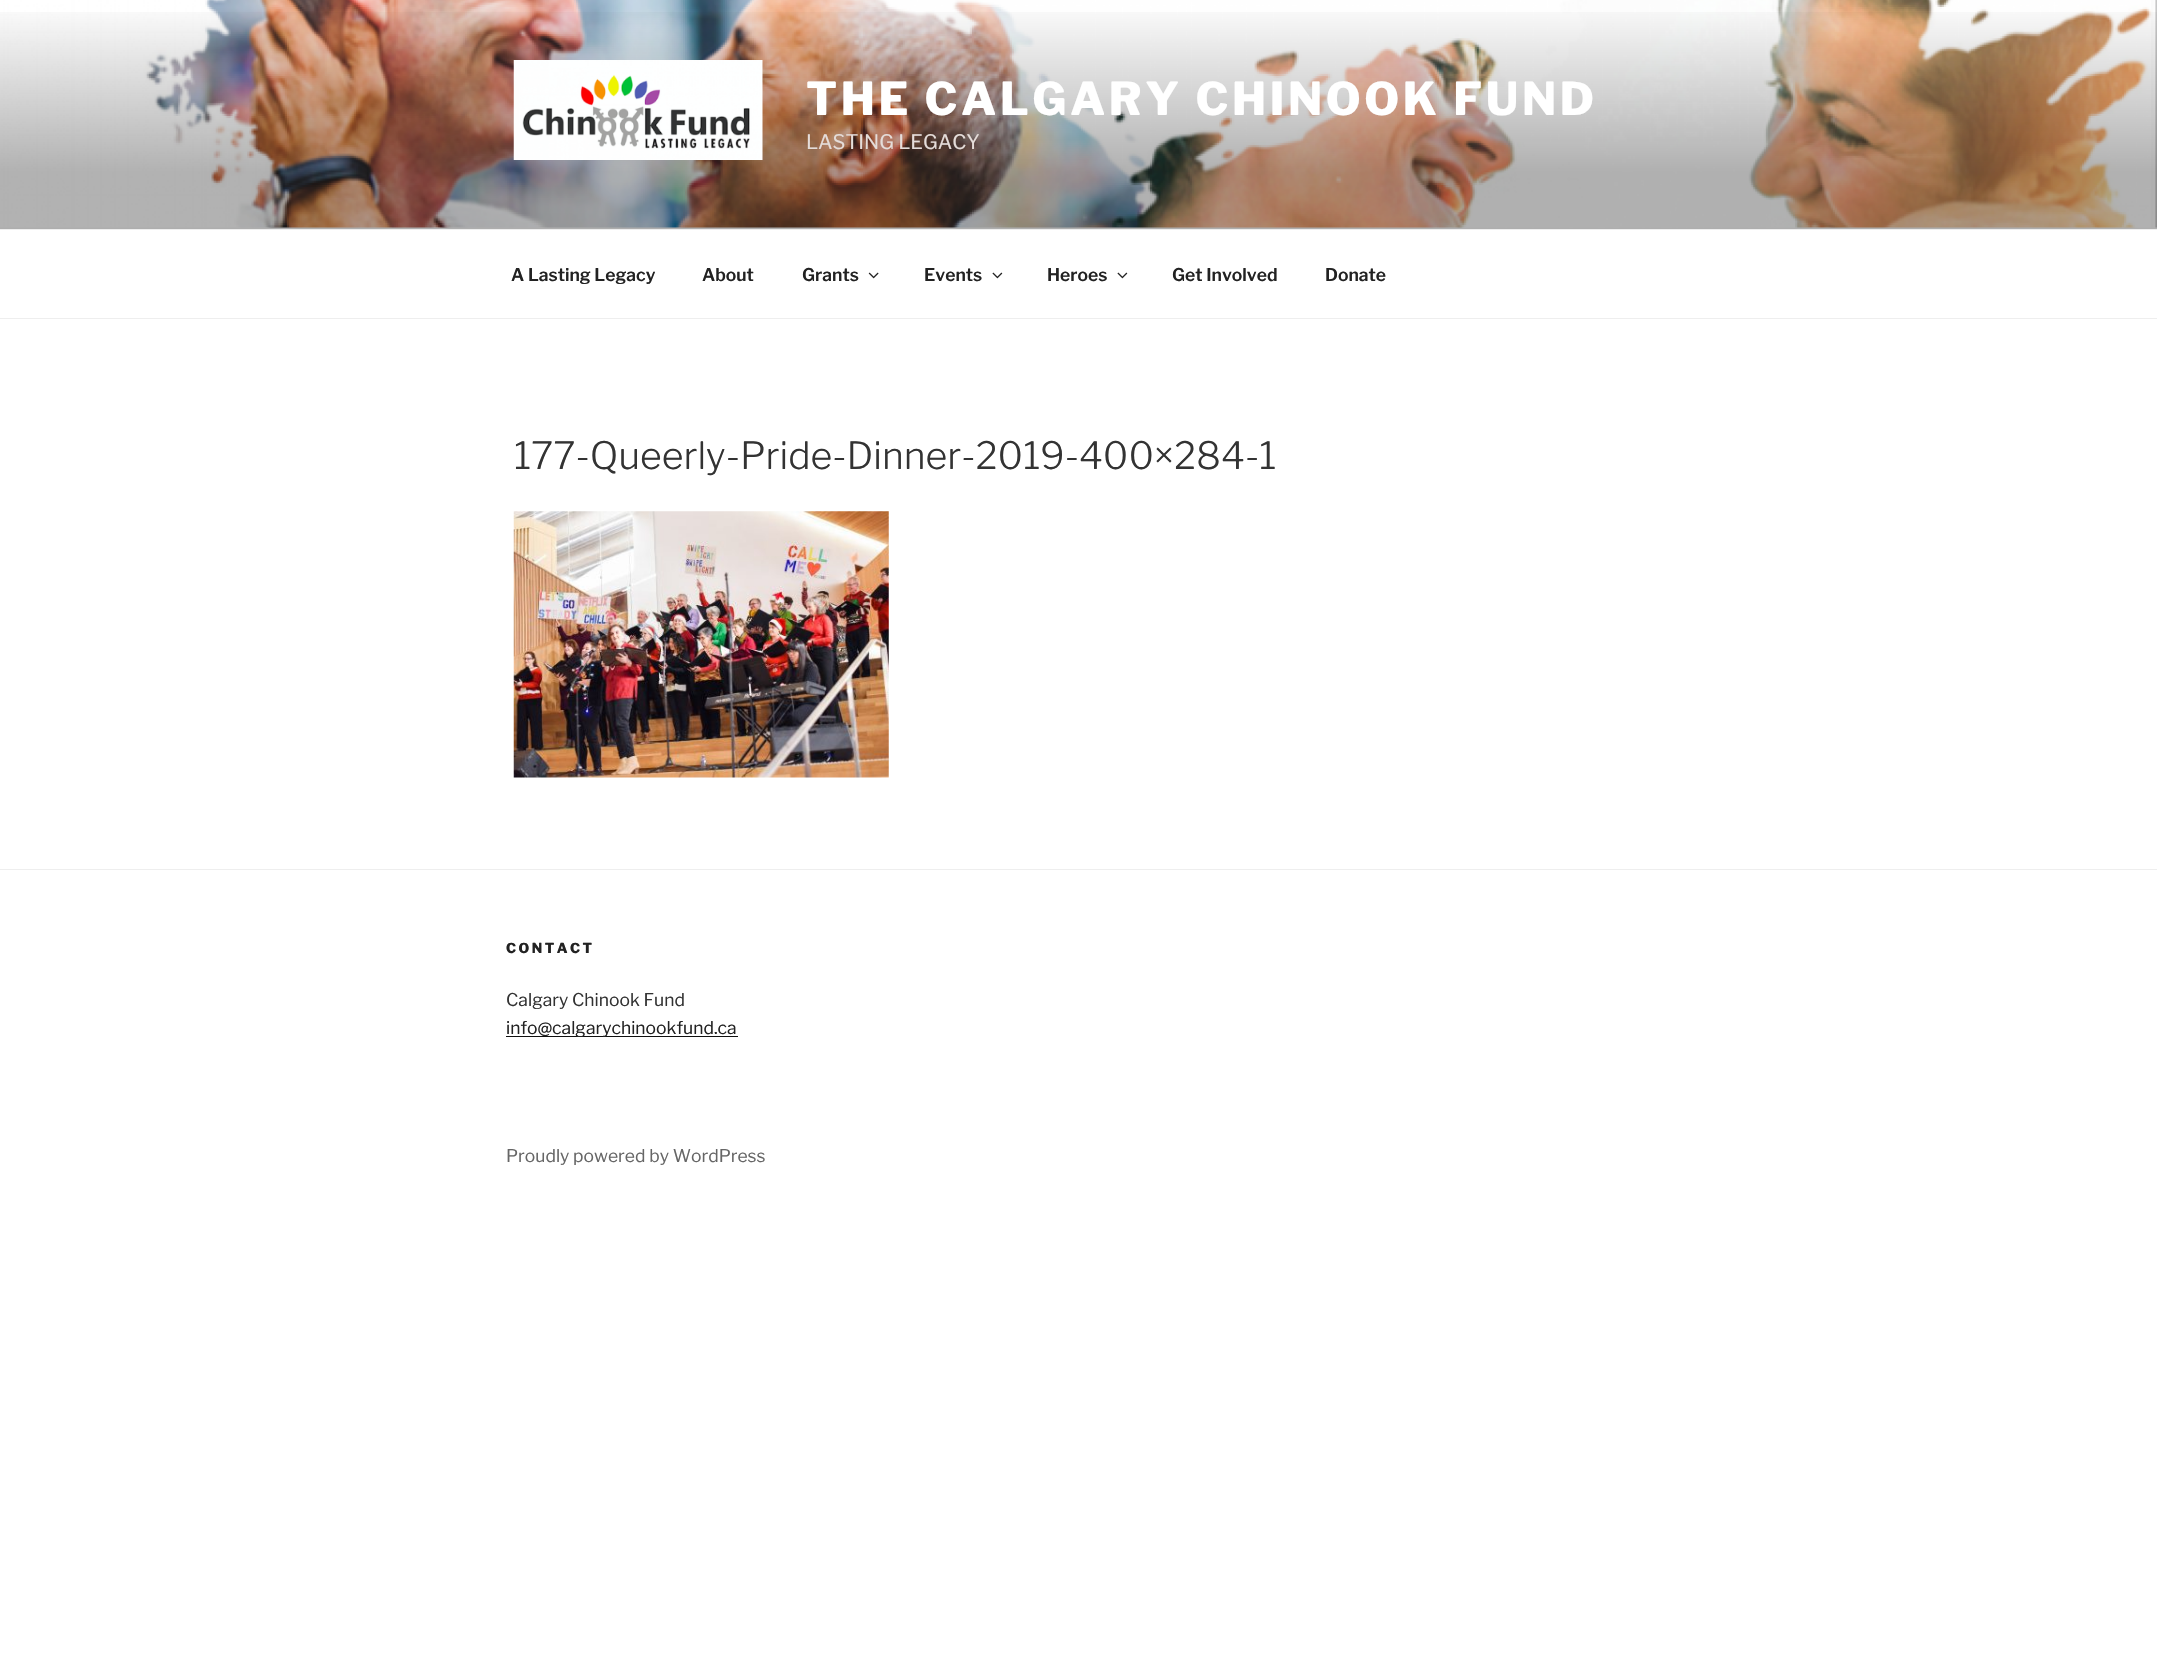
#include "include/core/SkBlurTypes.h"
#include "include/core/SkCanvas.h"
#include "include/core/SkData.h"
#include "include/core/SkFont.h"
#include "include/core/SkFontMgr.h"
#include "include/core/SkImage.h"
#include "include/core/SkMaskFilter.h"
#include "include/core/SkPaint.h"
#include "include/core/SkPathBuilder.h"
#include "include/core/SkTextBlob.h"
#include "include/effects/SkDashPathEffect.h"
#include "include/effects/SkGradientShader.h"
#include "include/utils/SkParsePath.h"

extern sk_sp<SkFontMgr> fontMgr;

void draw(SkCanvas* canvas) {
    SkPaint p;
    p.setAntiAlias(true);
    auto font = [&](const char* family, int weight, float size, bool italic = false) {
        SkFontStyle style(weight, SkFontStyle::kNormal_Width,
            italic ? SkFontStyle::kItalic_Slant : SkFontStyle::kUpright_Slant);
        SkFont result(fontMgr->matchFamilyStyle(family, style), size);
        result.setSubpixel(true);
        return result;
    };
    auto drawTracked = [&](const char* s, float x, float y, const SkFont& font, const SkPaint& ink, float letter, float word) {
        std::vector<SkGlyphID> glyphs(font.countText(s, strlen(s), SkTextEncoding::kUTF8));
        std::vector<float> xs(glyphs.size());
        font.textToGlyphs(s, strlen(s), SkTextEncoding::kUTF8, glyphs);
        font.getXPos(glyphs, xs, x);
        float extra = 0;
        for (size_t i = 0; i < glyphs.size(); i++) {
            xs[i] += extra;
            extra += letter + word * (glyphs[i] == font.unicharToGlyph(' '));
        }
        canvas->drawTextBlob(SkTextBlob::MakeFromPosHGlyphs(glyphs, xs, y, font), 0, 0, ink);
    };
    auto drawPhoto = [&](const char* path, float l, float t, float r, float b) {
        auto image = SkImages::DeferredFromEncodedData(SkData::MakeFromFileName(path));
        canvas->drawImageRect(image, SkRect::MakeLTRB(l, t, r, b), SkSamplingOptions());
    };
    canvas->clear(0xFFFFFFFF);
    p.setColor(0xFFFAFAFA);
    canvas->drawRect(SkRect::MakeLTRB(0, 227, 2157, 229), p);
    drawPhoto("media/1.png", 0, 0, 2157, 228);
    {
        const SkColor colors[] = {0x00000000, 0x4D000000, 0x4D000000};
        const float stops[] = {0, 0.75f, 1};
        const SkPoint ends[] = {{1079, 0}, {1079, 229}};
        p.setShader(SkGradientShader::MakeLinear(ends, colors, stops, 3, SkTileMode::kClamp));
        p.setAlpha(255);
    }
    canvas->drawRect(SkRect::MakeLTRB(0, 12, 2157, 229), p);
    drawPhoto("media/2.png", 513, 60, 763, 160);
    auto font1 = font("Libre Franklin", 100, 45);
    p.setShader(nullptr);
    p.setColor(0xFFFFFFFF);
    drawTracked("THE CALGARY CHINOOK FUND", 806, 115, font1, p, 3.6f, 0);
    auto font2 = font("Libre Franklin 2", 100, 20);
    p.setColor(0xFFE5DDDA);
    canvas->drawString("LASTING LEGACY", 806, 149, font2, p);
    p.setColor(0xFFEEEEEE);
    canvas->drawRect(SkRect::MakeLTRB(0, 229, 2157, 230), p);
    canvas->drawRect(SkRect::MakeLTRB(0, 318, 2157, 319), p);
    auto font3 = font("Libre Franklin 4", 100, 17.5f);
    p.setColor(0xFF222222);
    {
        const struct { const char* s; float x, y; } items[] = {
            {"A Lasting Legacy", 511, 281},
            {"About", 702, 281},
            {"Grants", 802, 281},
        };
        for (auto [s, x, y] : items) {
            canvas->drawString(s, x, y, font3, p);
        }
    }
    drawPhoto("media/3.png", 868, 272, 879, 279);
    canvas->drawString("Events", 924, 281, font3, p);
    drawPhoto("media/4.png", 992, 272, 1003, 279);
    canvas->drawString("Heroes", 1047, 281, font3, p);
    drawPhoto("media/4.png", 1117, 272, 1128, 279);
    canvas->drawString("Get Involved", 1172, 281, font3, p);
    canvas->drawString("Donate", 1325, 281, font3, p);
    auto font4 = font("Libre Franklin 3", 100, 37.5f);
    p.setColor(0xFF333333);
    canvas->drawString("177-Queerly-Pride-Dinner-2019-400×284-1", 514, 469, font4, p);
    drawPhoto("media/5.png", 513, 511, 889, 778);
    p.setColor(0xFFEEEEEE);
    canvas->drawRect(SkRect::MakeLTRB(0, 869, 2157, 870), p);
    auto font5 = font("Libre Franklin", 100, 13.75f);
    p.setColor(0xFF222222);
    drawTracked("CONTACT", 506, 953, font5, p, 2.5f, 0);
    auto font6 = font("Libre Franklin 2", 100, 17.5f);
    p.setColor(0xFF333333);
    canvas->drawString("Calgary Chinook Fund", 506, 1006, font6, p);
    p.setColor(0xFF0F0F0F);
    canvas->drawRect(SkRect::MakeLTRB(506, 1036, 738, 1037), p);
    p.setColor(0xFF222222);
    canvas->drawString("info@calgarychinookfund.ca", 506, 1034, font6, p);
    p.setColor(0xFF666666);
    canvas->drawString("Proudly powered by WordPress", 506, 1162, font6, p);
}
